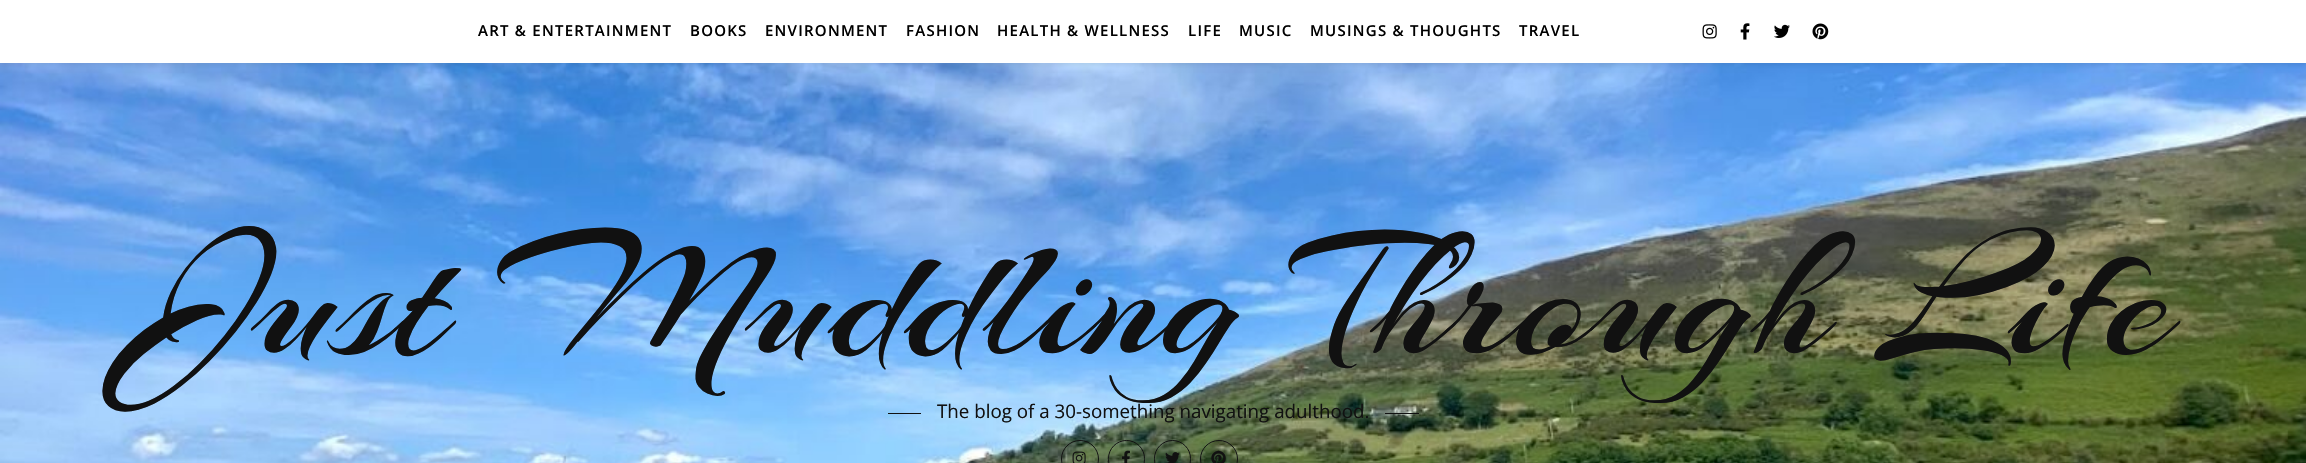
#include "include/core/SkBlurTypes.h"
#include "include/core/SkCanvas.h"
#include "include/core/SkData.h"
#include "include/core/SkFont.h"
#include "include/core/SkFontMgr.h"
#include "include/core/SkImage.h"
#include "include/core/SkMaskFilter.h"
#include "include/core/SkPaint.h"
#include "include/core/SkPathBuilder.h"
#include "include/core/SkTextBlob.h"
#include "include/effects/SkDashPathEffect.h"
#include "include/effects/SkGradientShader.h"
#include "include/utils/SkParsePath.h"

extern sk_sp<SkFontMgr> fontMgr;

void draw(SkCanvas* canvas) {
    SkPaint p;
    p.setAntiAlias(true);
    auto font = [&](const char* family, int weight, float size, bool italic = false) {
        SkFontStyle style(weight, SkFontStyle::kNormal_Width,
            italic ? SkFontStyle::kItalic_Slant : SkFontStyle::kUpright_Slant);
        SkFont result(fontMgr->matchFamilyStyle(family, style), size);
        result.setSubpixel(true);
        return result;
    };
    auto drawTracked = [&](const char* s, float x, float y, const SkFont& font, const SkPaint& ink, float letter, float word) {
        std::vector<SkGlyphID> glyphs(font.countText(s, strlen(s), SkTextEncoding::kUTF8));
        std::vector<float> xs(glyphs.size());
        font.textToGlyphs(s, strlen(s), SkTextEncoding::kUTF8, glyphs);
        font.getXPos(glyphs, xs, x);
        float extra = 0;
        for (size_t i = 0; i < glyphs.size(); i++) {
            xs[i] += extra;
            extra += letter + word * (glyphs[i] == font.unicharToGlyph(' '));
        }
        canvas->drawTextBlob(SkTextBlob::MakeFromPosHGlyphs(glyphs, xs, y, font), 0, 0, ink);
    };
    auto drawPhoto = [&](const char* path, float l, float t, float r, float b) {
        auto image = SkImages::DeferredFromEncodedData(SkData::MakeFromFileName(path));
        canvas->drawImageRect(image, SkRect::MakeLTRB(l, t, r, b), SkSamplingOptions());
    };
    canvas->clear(0xFFFFFFFF);
    drawPhoto("media/5.png", 0, 63, 2306, 463);
    p.setColor(0x1A000000);
    p.setMaskFilter(SkMaskFilter::MakeBlur(kNormal_SkBlurStyle, 3));
    canvas->drawRect(SkRect::MakeLTRB(0, 1, 2306, 64), p);
    p.setMaskFilter(nullptr);
    p.setColor(0xFFFFFFFF);
    canvas->drawRect(SkRect::MakeLTRB(0, 0, 2306, 63), p);
    auto font1 = font("Open Sans", 600, 15);
    p.setColor(0xFF000000);
    {
        const struct { const char* s; float x, y; } items[] = {
            {"ART & ENTERTAINMENT", 478, 36},
            {"BOOKS", 690, 36},
            {"ENVIRONMENT", 765, 36},
            {"FASHION", 906, 36},
            {"HEALTH & WELLNESS", 997, 36},
            {"LIFE", 1188, 36},
            {"MUSIC", 1239, 36},
            {"MUSINGS & THOUGHTS", 1310, 36},
            {"TRAVEL", 1519, 36},
        };
        for (auto [s, x, y] : items) {
            drawTracked(s, x, y, font1, p, 1.25f, 0);
        }
    }
    drawPhoto("media/1.png", 1702, 24, 1717, 39);
    drawPhoto("media/2.png", 1740, 23, 1750, 40);
    drawPhoto("media/3.png", 1774, 24, 1790, 38);
    drawPhoto("media/4.png", 1812, 23, 1829, 40);
    auto font2 = font("Arizonia", 400, 187.5f);
    p.setColor(0xFF111111);
    canvas->drawString("Just Muddling Through Life", 135, 353, font2, p);
    canvas->drawRect(SkRect::MakeLTRB(888, 413, 921, 414), p);
    auto font3 = font("Open Sans", 400, 18.75f);
    canvas->drawString("The blog of a 30-something navigating adulthood.", 937, 418, font3, p);
    canvas->drawRect(SkRect::MakeLTRB(1385, 413, 1419, 414), p);
    p.setStyle(SkPaint::kStroke_Style);
    p.setStrokeWidth(1);
    canvas->drawCircle(1080, 459, 18.5f, p);
    drawPhoto("media/6.png", 1072, 451, 1086, 463);
    canvas->drawRoundRect(SkRect::MakeLTRB(1108.5f, 440.5f, 1144.5f, 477.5f), 18, 18, p);
    drawPhoto("media/7.png", 1121, 450, 1130, 463);
    canvas->drawRoundRect(SkRect::MakeLTRB(1154.5f, 440.5f, 1190.5f, 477.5f), 18, 18, p);
    drawPhoto("media/8.png", 1165, 452, 1180, 463);
    canvas->drawCircle(1219, 459, 18.5f, p);
    drawPhoto("media/9.png", 1211, 450, 1226, 463);
}
